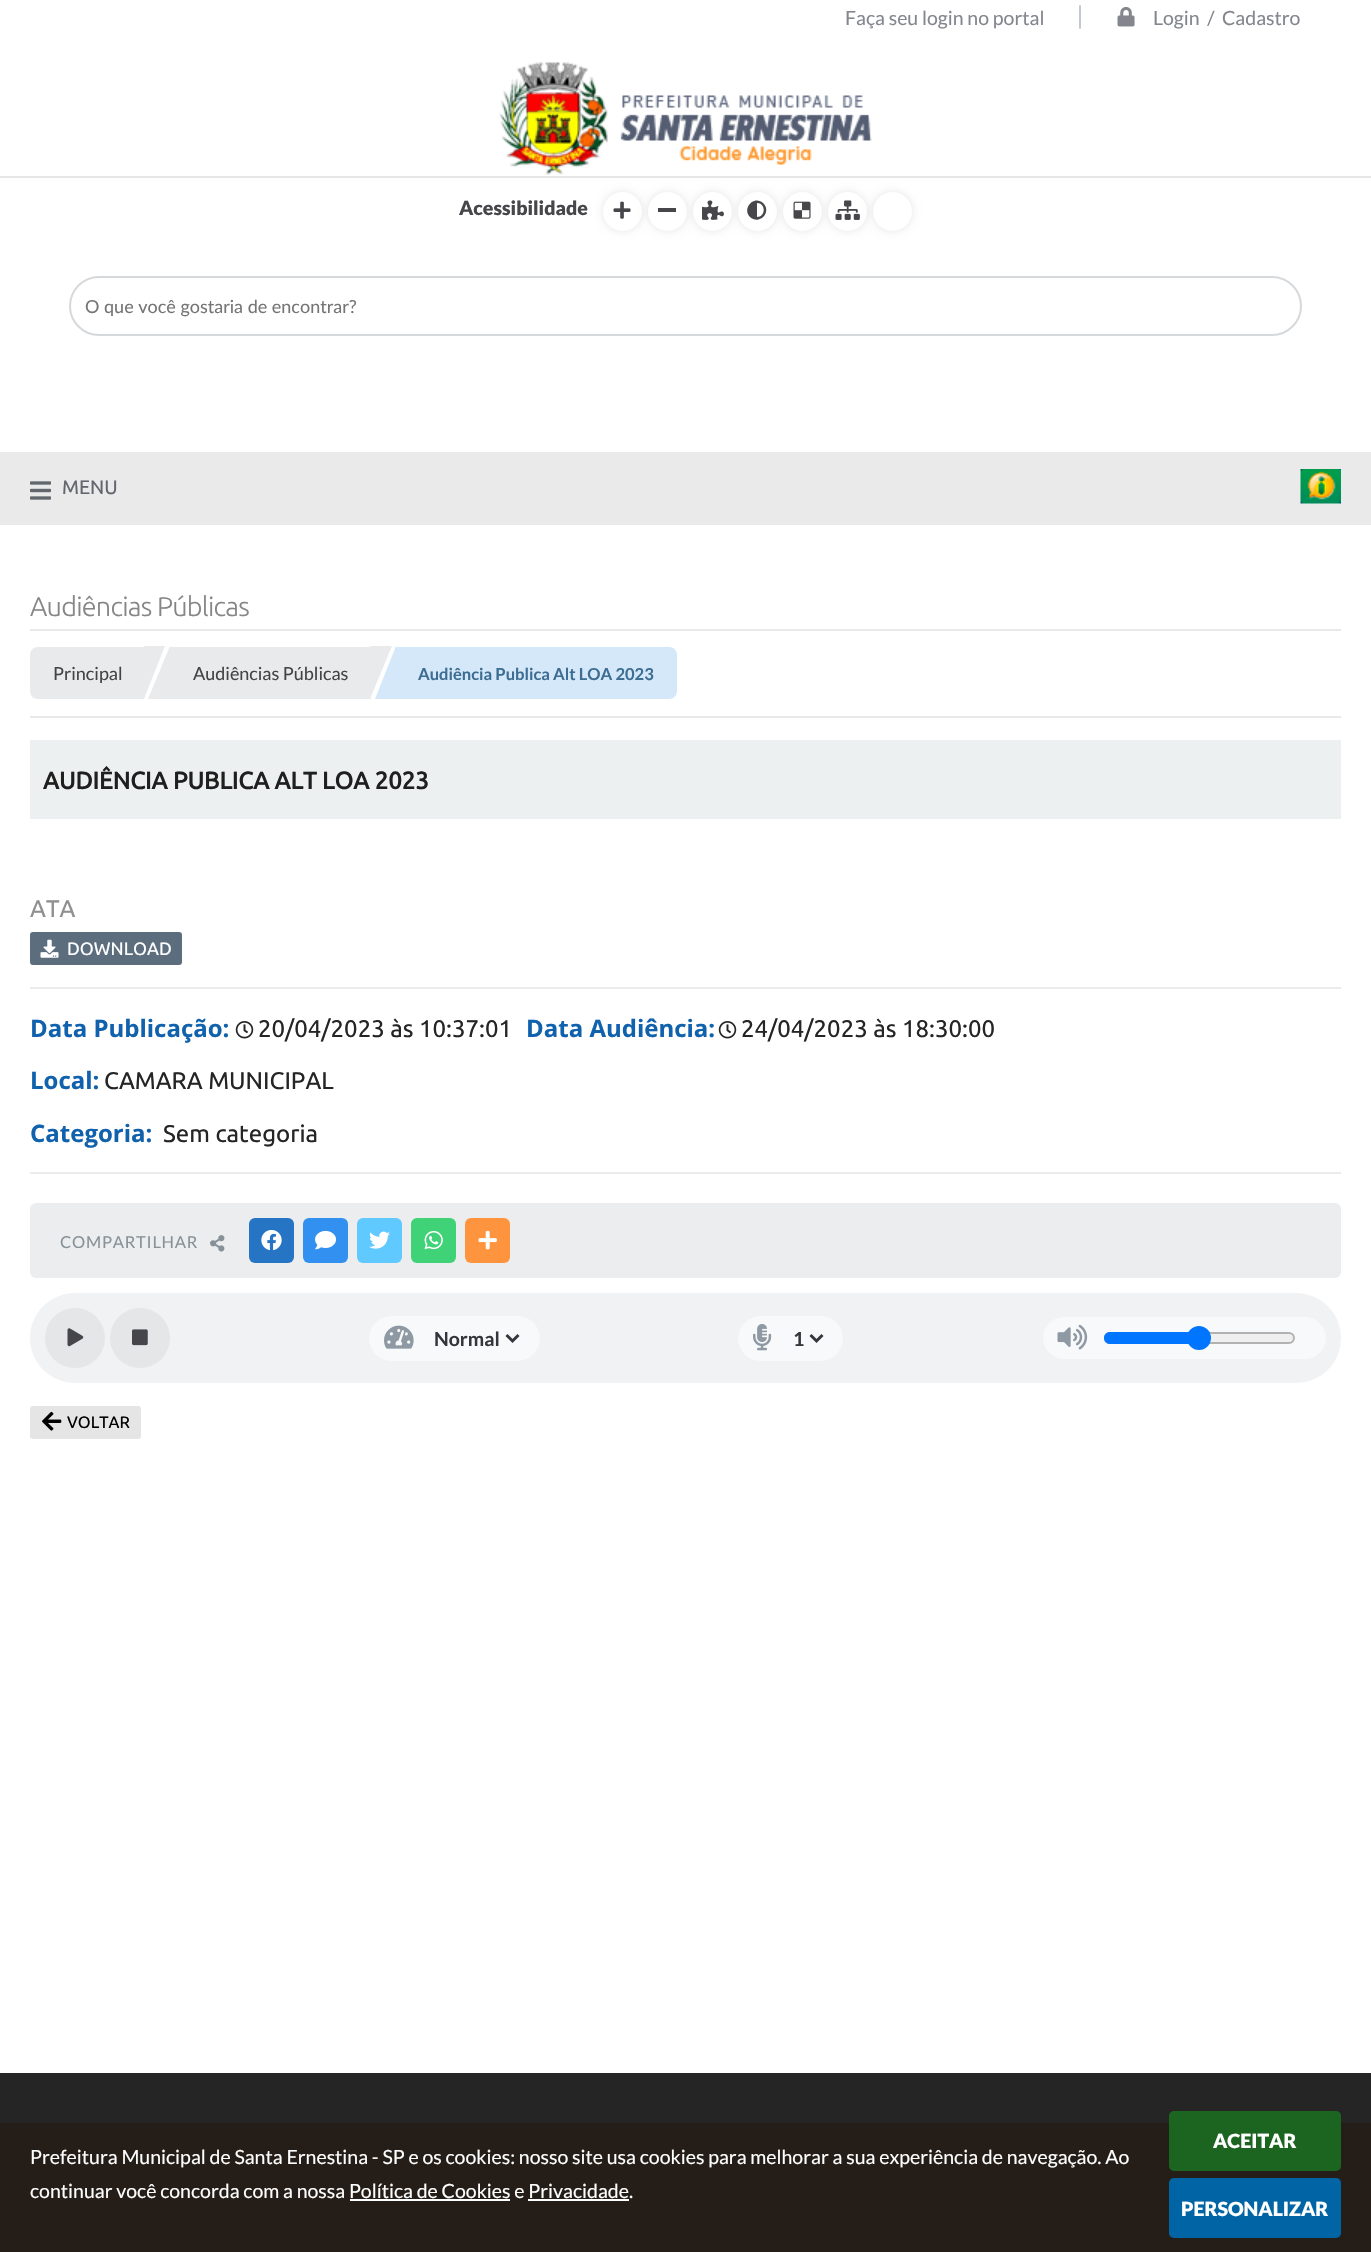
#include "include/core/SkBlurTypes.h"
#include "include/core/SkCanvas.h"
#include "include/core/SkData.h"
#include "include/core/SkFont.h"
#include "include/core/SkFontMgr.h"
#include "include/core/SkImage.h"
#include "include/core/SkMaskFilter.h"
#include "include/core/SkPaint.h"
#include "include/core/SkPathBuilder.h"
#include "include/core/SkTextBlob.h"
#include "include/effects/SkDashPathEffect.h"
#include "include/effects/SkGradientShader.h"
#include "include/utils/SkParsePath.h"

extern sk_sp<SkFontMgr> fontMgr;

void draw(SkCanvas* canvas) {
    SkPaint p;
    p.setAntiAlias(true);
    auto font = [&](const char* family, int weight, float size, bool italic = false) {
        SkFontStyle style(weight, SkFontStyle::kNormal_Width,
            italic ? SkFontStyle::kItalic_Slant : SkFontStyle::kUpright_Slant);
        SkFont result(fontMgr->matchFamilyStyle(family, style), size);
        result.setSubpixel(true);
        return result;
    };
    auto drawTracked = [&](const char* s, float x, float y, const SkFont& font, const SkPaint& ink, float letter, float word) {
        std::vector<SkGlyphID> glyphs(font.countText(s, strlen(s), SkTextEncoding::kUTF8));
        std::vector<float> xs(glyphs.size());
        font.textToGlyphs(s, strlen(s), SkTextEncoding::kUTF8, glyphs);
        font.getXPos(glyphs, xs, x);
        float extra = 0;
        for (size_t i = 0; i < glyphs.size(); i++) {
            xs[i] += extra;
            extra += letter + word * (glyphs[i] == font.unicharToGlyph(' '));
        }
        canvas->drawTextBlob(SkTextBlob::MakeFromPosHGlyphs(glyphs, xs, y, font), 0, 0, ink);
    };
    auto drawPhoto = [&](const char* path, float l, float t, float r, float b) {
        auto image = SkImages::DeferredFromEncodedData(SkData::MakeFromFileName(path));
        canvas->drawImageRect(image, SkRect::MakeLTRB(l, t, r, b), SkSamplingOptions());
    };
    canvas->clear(0xFFFFFFFF);
    p.setColor(0xFF252525);
    canvas->drawRect(SkRect::MakeLTRB(0, 2073, 1371, 2123), p);
    auto font1 = font("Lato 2", 400, 19.5f);
    p.setColor(0xFF83878D);
    canvas->drawString("Faça seu login no portal", 845, 25, font1, p);
    p.setColor(0xFFC4CACF);
    canvas->drawRoundRect(SkRect::MakeLTRB(1079, 5, 1081, 29), 1, 1, p);
    drawPhoto("media/1.png", 1117, 7, 1135, 27);
    p.setColor(0xFF83878D);
    canvas->drawString("Login  /  Cadastro", 1153, 25, font1, p);
    p.setColor(0xFF251E18);
    canvas->drawRect(SkRect::MakeLTRB(0, 2123, 1371, 2252), p);
    p.setColor(0xFFFFFFFF);
    canvas->drawString("Prefeitura Municipal de Santa Ernestina - SP e os cookies: nosso site usa cookies para melhorar a sua experiência de navegação. Ao", 30, 2164, font1, p);
    canvas->drawString("continuar você concorda com a nossa Política de Cookies e Privacidade.", 30, 2198, font1, p);
    canvas->drawRect(SkRect::MakeLTRB(350, 2199, 510, 2201), p);
    canvas->drawRect(SkRect::MakeLTRB(528, 2199, 629, 2201), p);
    p.setColor(0xFF1B6520);
    canvas->drawRoundRect(SkRect::MakeLTRB(1169, 2111, 1341, 2171), 5, 5, p);
    auto font2 = font("Lato", 900, 19.5f);
    p.setColor(0xFFFFFFFF);
    canvas->drawString("ACEITAR", 1213, 2148, font2, p);
    p.setColor(0xFF0164A4);
    canvas->drawRoundRect(SkRect::MakeLTRB(1169, 2178, 1341, 2238), 5, 5, p);
    p.setColor(0xFFFFFFFF);
    canvas->drawString("PERSONALIZAR", 1181, 2216, font2, p);
    drawPhoto("media/2.png", 499, 62, 872, 175);
    p.setColor(0xFFE6E6E6);
    canvas->drawRect(SkRect::MakeLTRB(0, 176, 1371, 178), p);
    p.setColor(0xFF47474B);
    canvas->drawString("Acessibilidade", 459, 215, font2, p);
    p.setColor(0x1A000000);
    p.setMaskFilter(SkMaskFilter::MakeBlur(kNormal_SkBlurStyle, 4));
    canvas->drawRoundRect(SkRect::MakeLTRB(603, 192, 642, 231), 19.5f, 19.5f, p);
    p.setMaskFilter(nullptr);
    p.setColor(0xFFFFFFFF);
    canvas->drawCircle(622.5f, 211.5f, 19.5f, p);
    drawPhoto("media/3.png", 613, 201, 631, 219);
    p.setColor(0x1A000000);
    p.setMaskFilter(SkMaskFilter::MakeBlur(kNormal_SkBlurStyle, 4));
    canvas->drawRoundRect(SkRect::MakeLTRB(648, 192, 687, 231), 19.5f, 19.5f, p);
    p.setMaskFilter(nullptr);
    p.setColor(0xFFFFFFFF);
    canvas->drawCircle(667.5f, 211.5f, 19.5f, p);
    p.setColor(0xFF47474B);
    canvas->drawRect(SkRect::MakeLTRB(658, 208, 676, 212), p);
    p.setColor(0x1A000000);
    p.setMaskFilter(SkMaskFilter::MakeBlur(kNormal_SkBlurStyle, 4));
    canvas->drawRoundRect(SkRect::MakeLTRB(693, 192, 732, 231), 19.5f, 19.5f, p);
    p.setMaskFilter(nullptr);
    p.setColor(0xFFFFFFFF);
    canvas->drawCircle(712.5f, 211.5f, 19.5f, p);
    drawPhoto("media/4.png", 702, 200, 724, 220);
    p.setColor(0x1A000000);
    p.setMaskFilter(SkMaskFilter::MakeBlur(kNormal_SkBlurStyle, 4));
    canvas->drawRoundRect(SkRect::MakeLTRB(738, 192, 777, 231), 19.5f, 19.5f, p);
    p.setMaskFilter(nullptr);
    p.setColor(0xFFFFFFFF);
    canvas->drawCircle(757.5f, 211.5f, 19.5f, p);
    p.setColor(0xFF47474B);
    canvas->drawPath(SkPathBuilder().moveTo(750, 217).cubicTo(741.5f, 208, 754.5f, 194.5f, 763.5f, 203.5f).cubicTo(772, 212.5f, 759, 225.5f, 750, 217).close().moveTo(757, 217).cubicTo(766, 217, 766, 203, 757, 203).close().detach(), p);
    p.setColor(0x1A000000);
    p.setMaskFilter(SkMaskFilter::MakeBlur(kNormal_SkBlurStyle, 4));
    canvas->drawRoundRect(SkRect::MakeLTRB(783, 192, 822, 231), 19.5f, 19.5f, p);
    p.setMaskFilter(nullptr);
    p.setColor(0xFFFFFFFF);
    canvas->drawCircle(802.5f, 211.5f, 19.5f, p);
    drawPhoto("media/5.png", 793, 201, 811, 219);
    p.setColor(0x1A000000);
    p.setMaskFilter(SkMaskFilter::MakeBlur(kNormal_SkBlurStyle, 4));
    canvas->drawRoundRect(SkRect::MakeLTRB(828, 192, 867, 231), 19.5f, 19.5f, p);
    p.setMaskFilter(nullptr);
    p.setColor(0xFFFFFFFF);
    canvas->drawCircle(847.5f, 211.5f, 19.5f, p);
    drawPhoto("media/6.png", 835, 200, 860, 220);
    p.setColor(0x1A000000);
    p.setMaskFilter(SkMaskFilter::MakeBlur(kNormal_SkBlurStyle, 4));
    canvas->drawRoundRect(SkRect::MakeLTRB(873, 192, 912, 231), 19.5f, 19.5f, p);
    p.setMaskFilter(nullptr);
    p.setColor(0xFFFFFFFF);
    canvas->drawCircle(892.5f, 211.5f, 19.5f, p);
    p.setStyle(SkPaint::kStroke_Style);
    p.setStrokeWidth(2);
    p.setColor(0xFFD5D9DC);
    canvas->drawRoundRect(SkRect::MakeLTRB(70, 277, 1301, 335), 29, 29, p);
    auto font3 = font("Lato", 400, 18);
    p.setStyle(SkPaint::kFill_Style);
    p.setColor(0xFF757575);
    canvas->drawString("O que você gostaria de encontrar?", 85, 313, font3, p);
    p.setColor(0xFFEAEAEA);
    canvas->drawRect(SkRect::MakeLTRB(0, 452, 1371, 525), p);
    drawPhoto("media/7.png", 30, 481, 51, 500);
    auto font4 = font("Ubuntu", 400, 19.5f);
    p.setColor(0xFF62666D);
    canvas->drawString("MENU", 62, 494, font4, p);
    drawPhoto("media/8.png", 1300, 469, 1341, 504);
    auto font5 = font("Ubuntu", 300, 27);
    p.setColor(0xFF868686);
    drawTracked("Audiências Públicas", 30, 616, font5, p, -0.75f, 0);
    p.setColor(0xFFE9E9E9);
    canvas->drawRect(SkRect::MakeLTRB(30, 629, 1341, 631), p);
    canvas->drawRect(SkRect::MakeLTRB(30, 716, 1341, 718), p);
    p.setColor(0xFFE9EAEC);
    canvas->drawPath(SkPathBuilder().moveTo(38, 647).lineTo(144, 647).lineTo(144, 699).lineTo(38, 699).cubicTo(33.5f, 699, 30, 695.5f, 30, 691).lineTo(30, 655).cubicTo(30, 650.5f, 33.5f, 647, 38, 647).close().detach(), p);
    auto font6 = font("Lato 2", 400, 18);
    p.setColor(0xFF444444);
    canvas->drawString("Principal", 53, 680, font6, p);
    p.setColor(0xFFE9EAEC);
    canvas->drawPath(SkPathBuilder().moveTo(144, 646).lineTo(165, 646).lineTo(144, 699).close().detach(), p);
    canvas->drawRect(SkRect::MakeLTRB(170, 647, 371, 699), p);
    canvas->drawPath(SkPathBuilder().moveTo(170, 699).lineTo(148, 699).lineTo(170, 646).close().detach(), p);
    p.setColor(0xFF444444);
    canvas->drawString("Audiências Públicas", 193, 680, font6, p);
    p.setColor(0xFFE9EAEC);
    canvas->drawPath(SkPathBuilder().moveTo(370, 646).lineTo(392, 646).lineTo(370, 699).close().detach(), p);
    p.setColor(0xFFD4E8F9);
    canvas->drawPath(SkPathBuilder().moveTo(396, 647).lineTo(669, 647).cubicTo(673.5f, 647, 677, 650.5f, 677, 655).lineTo(677, 691).cubicTo(677, 695.5f, 673.5f, 699, 669, 699).lineTo(396, 699).close().detach(), p);
    canvas->drawPath(SkPathBuilder().moveTo(396, 699).lineTo(375, 699).lineTo(396, 646).close().detach(), p);
    auto font7 = font("Lato", 700, 16.5f);
    p.setColor(0xFF3D6D92);
    canvas->drawString("Audiência Publica Alt LOA 2023", 418, 680, font7, p);
    p.setColor(0xFFECF0F1);
    canvas->drawRect(SkRect::MakeLTRB(30, 740, 1341, 819), p);
    auto font8 = font("Ubuntu", 700, 24);
    p.setColor(0xFF1F1F1F);
    canvas->drawString("AUDIÊNCIA PUBLICA ALT LOA 2023", 43, 789, font8, p);
    auto font9 = font("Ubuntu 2", 400, 24);
    p.setColor(0xFF909090);
    canvas->drawString("ATA", 30, 917, font9, p);
    p.setColor(0xFF5C6D7E);
    canvas->drawRoundRect(SkRect::MakeLTRB(30, 932, 182, 965), 3, 3, p);
    drawPhoto("media/9.png", 40, 939, 59, 958);
    auto font10 = font("Ubuntu", 400, 18);
    p.setColor(0xFFFFFFFF);
    canvas->drawString("DOWNLOAD", 67, 955, font10, p);
    p.setColor(0xFFEBEBEB);
    canvas->drawRect(SkRect::MakeLTRB(30, 987, 1341, 989), p);
    canvas->drawRect(SkRect::MakeLTRB(30, 1172, 1341, 1174), p);
    auto font11 = font("Open Sans", 700, 24);
    p.setColor(0xFF1162AD);
    canvas->drawString("Data Publicação:", 30, 1037, font11, p);
    drawPhoto("media/10.png", 235, 1021, 254, 1039);
    auto font12 = font("Ubuntu", 400, 24);
    p.setColor(0xFF252525);
    canvas->drawString("20/04/2023 às 10:37:01", 258, 1037, font12, p);
    p.setColor(0xFF1162AD);
    canvas->drawString("Data Audiência:", 526, 1037, font11, p);
    drawPhoto("media/10.png", 718, 1021, 737, 1039);
    p.setColor(0xFF252525);
    canvas->drawString("24/04/2023 às 18:30:00", 741, 1037, font12, p);
    p.setColor(0xFF1162AD);
    canvas->drawString("Local:", 30, 1089, font11, p);
    p.setColor(0xFF252525);
    canvas->drawString("CAMARA MUNICIPAL", 104, 1089, font12, p);
    p.setColor(0xFF1162AD);
    canvas->drawString("Categoria:", 30, 1142, font11, p);
    p.setColor(0xFF252525);
    canvas->drawString("Sem categoria", 163, 1142, font12, p);
    p.setColor(0xFFEBEDEE);
    canvas->drawRoundRect(SkRect::MakeLTRB(30, 1203, 1341, 1278), 6, 6, p);
    auto font13 = font("Lato 2", 400, 16.5f);
    p.setColor(0xFF869198);
    drawTracked("COMPARTILHAR", 60, 1248, font13, p, 0.75f, 0);
    drawPhoto("media/11.png", 210, 1235, 225, 1252);
    p.setColor(0xFF2675C5);
    canvas->drawRoundRect(SkRect::MakeLTRB(249, 1218, 294, 1263), 6, 6, p);
    drawPhoto("media/12.png", 261, 1230, 282, 1251);
    p.setColor(0xFF3290F0);
    canvas->drawRoundRect(SkRect::MakeLTRB(303, 1218, 348, 1263), 6, 6, p);
    drawPhoto("media/13.png", 315, 1230, 336, 1250);
    p.setColor(0xFF60C9FF);
    canvas->drawRoundRect(SkRect::MakeLTRB(357, 1218, 402, 1263), 6, 6, p);
    drawPhoto("media/14.png", 369, 1231, 390, 1249);
    p.setColor(0xFF40D277);
    canvas->drawRoundRect(SkRect::MakeLTRB(411, 1218, 456, 1263), 6, 6, p);
    drawPhoto("media/15.png", 424, 1230, 443, 1250);
    p.setColor(0xFFFF943E);
    canvas->drawRoundRect(SkRect::MakeLTRB(465, 1218, 510, 1263), 6, 6, p);
    drawPhoto("media/16.png", 478, 1230, 497, 1250);
    p.setColor(0xFFF0F2F4);
    canvas->drawRoundRect(SkRect::MakeLTRB(30, 1293, 1341, 1383), 45, 45, p);
    p.setColor(0xFFE4E6E8);
    canvas->drawCircle(75, 1338, 30, p);
    drawPhoto("media/17.png", 67, 1328, 84, 1347);
    canvas->drawCircle(140, 1338, 30, p);
    drawPhoto("media/18.png", 132, 1329, 148, 1346);
    p.setColor(0xFFF8F9FA);
    canvas->drawRoundRect(SkRect::MakeLTRB(369, 1316, 540, 1361), 22.5f, 22.5f, p);
    drawPhoto("media/19.png", 384, 1325, 414, 1349);
    p.setStyle(SkPaint::kStroke_Style);
    p.setStrokeWidth(3);
    p.setColor(0xFF35353B);
    canvas->drawPath(SkPathBuilder().moveTo(506.5f, 1335).lineTo(512.5f, 1341).lineTo(518.5f, 1335).detach(), p);
    auto font14 = font("Lato", 700, 19.5f);
    p.setStyle(SkPaint::kFill_Style);
    canvas->drawString("Normal", 434, 1346, font14, p);
    p.setColor(0xFFF8F9FA);
    canvas->drawRoundRect(SkRect::MakeLTRB(738, 1316, 843, 1361), 22.5f, 22.5f, p);
    drawPhoto("media/20.png", 753, 1324, 772, 1351);
    p.setStyle(SkPaint::kStroke_Style);
    p.setColor(0xFF35353B);
    canvas->drawPath(SkPathBuilder().moveTo(810.5f, 1335).lineTo(816.5f, 1341).lineTo(822.5f, 1335).detach(), p);
    p.setStyle(SkPaint::kFill_Style);
    canvas->drawString("1", 793, 1346, font14, p);
    p.setColor(0xFFF8F9FA);
    canvas->drawRoundRect(SkRect::MakeLTRB(1043, 1317, 1326, 1359), 21, 21, p);
    drawPhoto("media/21.png", 1057, 1324, 1088, 1350);
    p.setColor(0xFFEFEFEF);
    canvas->drawRoundRect(SkRect::MakeLTRB(1105, 1333, 1294, 1343), 5, 5, p);
    p.setStyle(SkPaint::kStroke_Style);
    p.setStrokeWidth(2);
    p.setColor(0xFFB2B2B2);
    canvas->drawRoundRect(SkRect::MakeLTRB(1105, 1333, 1294, 1343), 5, 5, p);
    p.setStyle(SkPaint::kFill_Style);
    p.setColor(0xFF0075FF);
    canvas->drawPath(SkPathBuilder().moveTo(1110, 1332).lineTo(1199, 1332).lineTo(1199, 1344).lineTo(1110, 1344).cubicTo(1106.5f, 1344, 1104, 1341.5f, 1104, 1338).cubicTo(1104, 1334.5f, 1106.5f, 1332, 1110, 1332).close().detach(), p);
    canvas->drawCircle(1199, 1338, 12, p);
    p.setColor(0xFFE5E5E5);
    canvas->drawRoundRect(SkRect::MakeLTRB(30, 1406, 141, 1439), 3, 3, p);
    drawPhoto("media/22.png", 42, 1411, 62, 1431);
    auto font15 = font("Ubuntu", 400, 16.5f);
    p.setColor(0xFF000000);
    canvas->drawString("VOLTAR", 67, 1428, font15, p);
}
